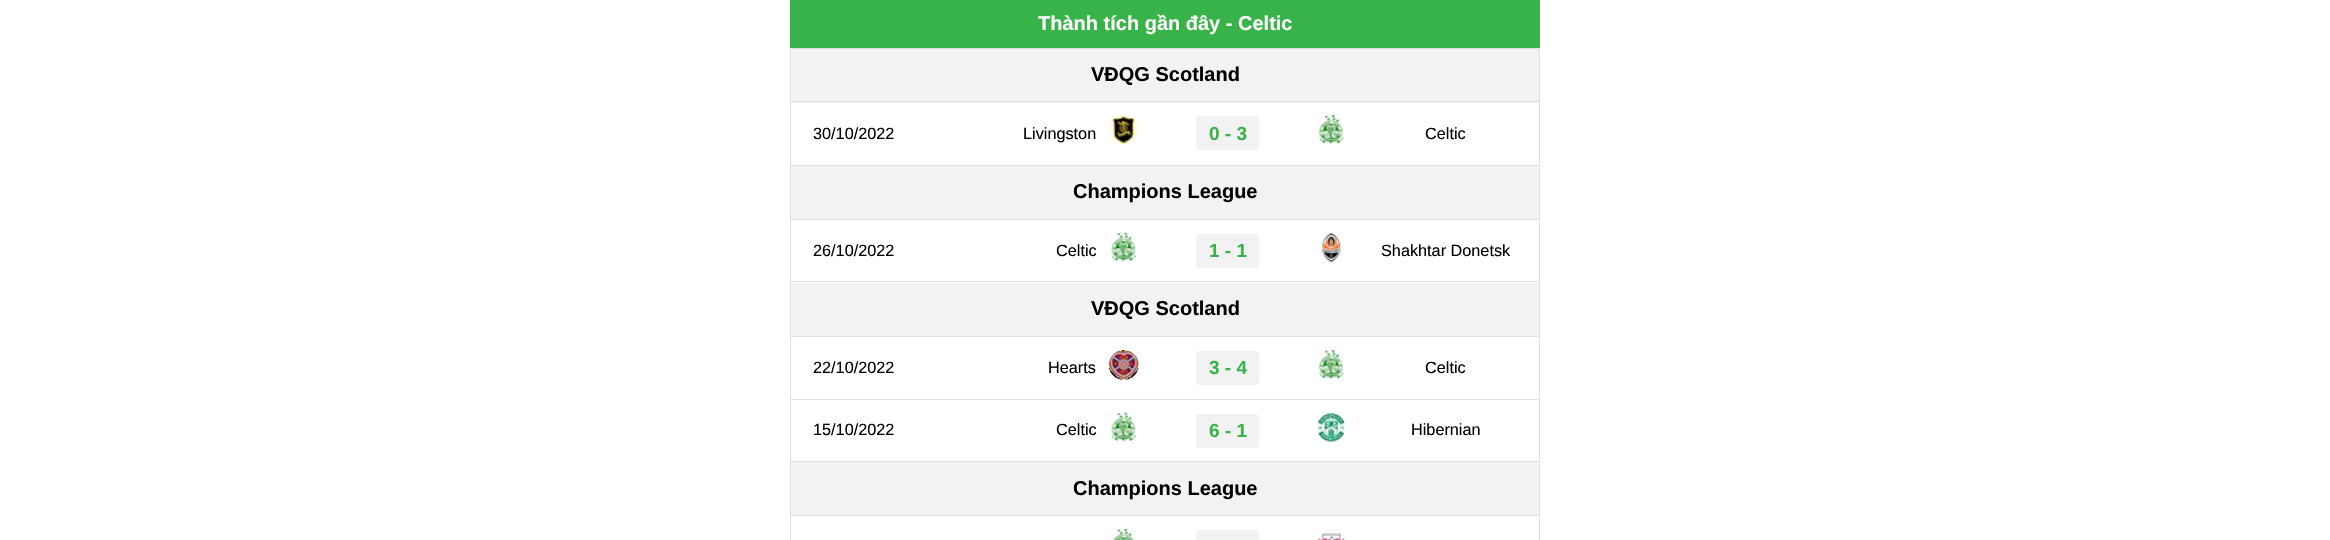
#include "include/core/SkBlurTypes.h"
#include "include/core/SkCanvas.h"
#include "include/core/SkData.h"
#include "include/core/SkFont.h"
#include "include/core/SkFontMgr.h"
#include "include/core/SkImage.h"
#include "include/core/SkMaskFilter.h"
#include "include/core/SkPaint.h"
#include "include/core/SkPathBuilder.h"
#include "include/core/SkTextBlob.h"
#include "include/effects/SkDashPathEffect.h"
#include "include/effects/SkGradientShader.h"
#include "include/utils/SkParsePath.h"

extern sk_sp<SkFontMgr> fontMgr;

void draw(SkCanvas* canvas) {
    SkPaint p;
    p.setAntiAlias(true);
    auto font = [&](const char* family, int weight, float size, bool italic = false) {
        SkFontStyle style(weight, SkFontStyle::kNormal_Width,
            italic ? SkFontStyle::kItalic_Slant : SkFontStyle::kUpright_Slant);
        SkFont result(fontMgr->matchFamilyStyle(family, style), size);
        result.setSubpixel(true);
        return result;
    };
    auto drawPhoto = [&](const char* path, float l, float t, float r, float b) {
        auto image = SkImages::DeferredFromEncodedData(SkData::MakeFromFileName(path));
        canvas->drawImageRect(image, SkRect::MakeLTRB(l, t, r, b), SkSamplingOptions());
    };
    canvas->clear(0xFFFFFFFF);
    p.setColor(0xFF37B349);
    canvas->drawRect(SkRect::MakeLTRB(790, 0, 1540, 48), p);
    auto font1 = font("Liberation Sans", 700, 20);
    p.setColor(0xFFFFFFFF);
    canvas->drawString("Thành tích gần đây - Celtic", 1038, 30, font1, p);
    {
        const struct { float l, t, r, b; SkColor color; } items[] = {
            {790, 48, 1540, 49, 0xFFE0E0E0},
            {1539, 48, 1540, 540, 0xFFE0E0E0},
            {790, 48, 791, 540, 0xFFE0E0E0},
            {791, 49, 1539, 103, 0xFFF2F2F2},
            {790, 101, 1540, 102, 0xFFE0E0E0},
        };
        for (auto [l, t, r, b, color] : items) {
            p.setColor(color);
            canvas->drawRect(SkRect::MakeLTRB(l, t, r, b), p);
        }
    }
    p.setColor(0xFF000000);
    canvas->drawString("VĐQG Scotland", 1091, 81, font1, p);
    p.setColor(0xFFE0E0E0);
    canvas->drawRect(SkRect::MakeLTRB(790, 165, 1540, 166), p);
    auto font2 = font("Liberation Sans", 400, 16.25f);
    p.setColor(0xFF000000);
    canvas->drawString("30/10/2022", 813, 139, font2, p);
    canvas->drawString("Livingston", 1023, 139, font2, p);
    drawPhoto("media/1.png", 1109, 115, 1138, 145);
    p.setColor(0xFFF2F2F2);
    canvas->drawRoundRect(SkRect::MakeLTRB(1196, 116, 1259, 150), 4, 4, p);
    auto font3 = font("Liberation Sans", 700, 19);
    p.setColor(0xFF37B349);
    canvas->drawString("0 - 3", 1209, 140, font3, p);
    drawPhoto("media/2.png", 1318, 115, 1344, 144);
    p.setColor(0xFF000000);
    canvas->drawString("Celtic", 1425, 139, font2, p);
    p.setColor(0xFFF2F2F2);
    canvas->drawRect(SkRect::MakeLTRB(791, 166, 1539, 219), p);
    p.setColor(0xFFE0E0E0);
    canvas->drawRect(SkRect::MakeLTRB(790, 219, 1540, 220), p);
    p.setColor(0xFF000000);
    canvas->drawString("Champions League", 1073, 198, font1, p);
    p.setColor(0xFFE0E0E0);
    canvas->drawRect(SkRect::MakeLTRB(790, 281, 1540, 282), p);
    p.setColor(0xFF000000);
    canvas->drawString("26/10/2022", 813, 256, font2, p);
    canvas->drawString("Celtic", 1056, 256, font2, p);
    drawPhoto("media/3.png", 1111, 232, 1137, 262);
    p.setColor(0xFFF2F2F2);
    canvas->drawRoundRect(SkRect::MakeLTRB(1196, 234, 1259, 268), 4, 4, p);
    p.setColor(0xFF37B349);
    canvas->drawString("1 - 1", 1209, 257, font3, p);
    drawPhoto("media/4.png", 1321, 232, 1341, 263);
    p.setColor(0xFF000000);
    canvas->drawString("Shakhtar Donetsk", 1381, 256, font2, p);
    p.setColor(0xFFF2F2F2);
    canvas->drawRect(SkRect::MakeLTRB(791, 283, 1539, 336), p);
    p.setColor(0xFFE0E0E0);
    canvas->drawRect(SkRect::MakeLTRB(790, 336, 1540, 337), p);
    p.setColor(0xFF000000);
    canvas->drawString("VĐQG Scotland", 1091, 315, font1, p);
    p.setColor(0xFFE0E0E0);
    canvas->drawRect(SkRect::MakeLTRB(790, 399, 1540, 400), p);
    p.setColor(0xFF000000);
    canvas->drawString("22/10/2022", 813, 373, font2, p);
    canvas->drawString("Hearts", 1048, 373, font2, p);
    drawPhoto("media/5.png", 1108, 350, 1139, 380);
    p.setColor(0xFFF2F2F2);
    canvas->drawRoundRect(SkRect::MakeLTRB(1196, 351, 1259, 385), 4, 4, p);
    p.setColor(0xFF37B349);
    canvas->drawString("3 - 4", 1209, 374, font3, p);
    drawPhoto("media/2.png", 1318, 350, 1344, 379);
    p.setColor(0xFF000000);
    canvas->drawString("Celtic", 1425, 373, font2, p);
    p.setColor(0xFFE0E0E0);
    canvas->drawRect(SkRect::MakeLTRB(790, 461, 1540, 462), p);
    p.setColor(0xFF000000);
    canvas->drawString("15/10/2022", 813, 435, font2, p);
    canvas->drawString("Celtic", 1056, 435, font2, p);
    drawPhoto("media/6.png", 1111, 412, 1137, 442);
    p.setColor(0xFFF2F2F2);
    canvas->drawRoundRect(SkRect::MakeLTRB(1196, 414, 1259, 448), 4, 4, p);
    p.setColor(0xFF37B349);
    canvas->drawString("6 - 1", 1209, 437, font3, p);
    drawPhoto("media/7.png", 1316, 412, 1346, 443);
    p.setColor(0xFF000000);
    canvas->drawString("Hibernian", 1411, 435, font2, p);
    p.setColor(0xFFF2F2F2);
    canvas->drawRect(SkRect::MakeLTRB(791, 462, 1539, 515), p);
    p.setColor(0xFFE0E0E0);
    canvas->drawRect(SkRect::MakeLTRB(790, 515, 1540, 516), p);
    p.setColor(0xFF000000);
    canvas->drawString("Champions League", 1073, 495, font1, p);
    drawPhoto("media/8.png", 1112, 528, 1134, 540);
    p.setColor(0xFFF2F2F2);
    canvas->drawRoundRect(SkRect::MakeLTRB(1196, 530, 1259, 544), 4, 4, p);
    drawPhoto("media/9.png", 1317, 529, 1346, 540);
}
